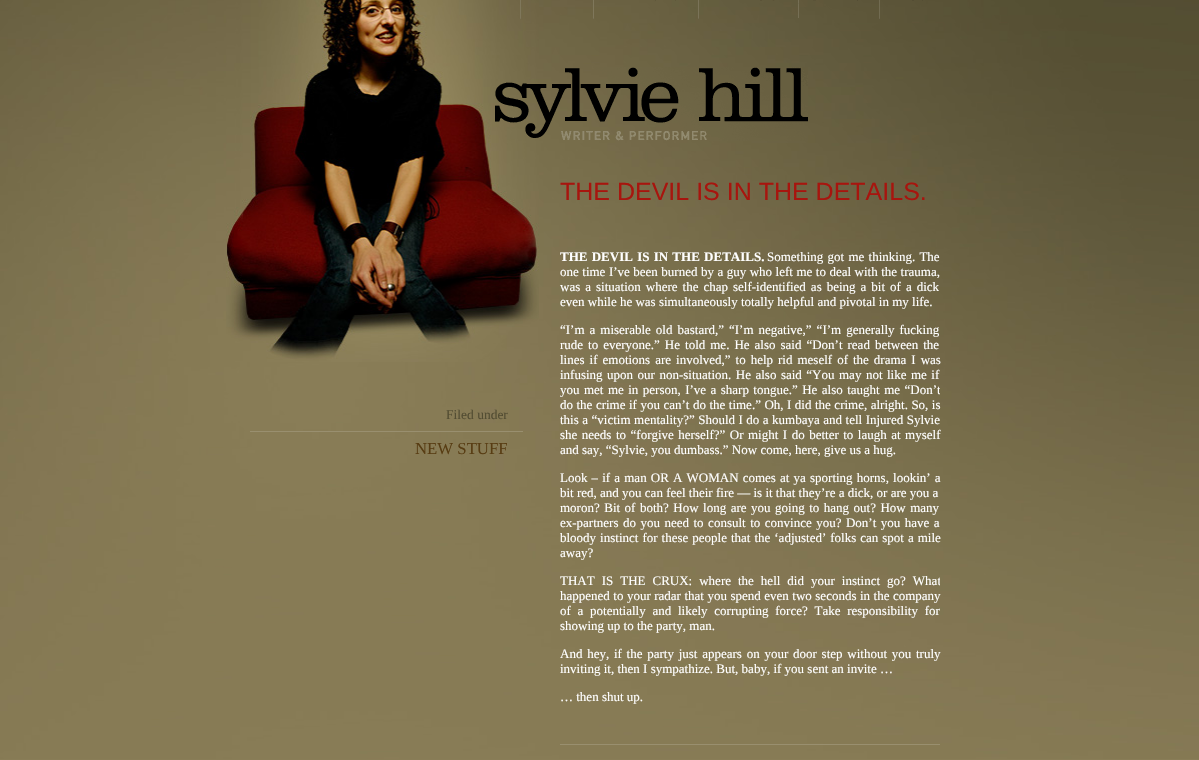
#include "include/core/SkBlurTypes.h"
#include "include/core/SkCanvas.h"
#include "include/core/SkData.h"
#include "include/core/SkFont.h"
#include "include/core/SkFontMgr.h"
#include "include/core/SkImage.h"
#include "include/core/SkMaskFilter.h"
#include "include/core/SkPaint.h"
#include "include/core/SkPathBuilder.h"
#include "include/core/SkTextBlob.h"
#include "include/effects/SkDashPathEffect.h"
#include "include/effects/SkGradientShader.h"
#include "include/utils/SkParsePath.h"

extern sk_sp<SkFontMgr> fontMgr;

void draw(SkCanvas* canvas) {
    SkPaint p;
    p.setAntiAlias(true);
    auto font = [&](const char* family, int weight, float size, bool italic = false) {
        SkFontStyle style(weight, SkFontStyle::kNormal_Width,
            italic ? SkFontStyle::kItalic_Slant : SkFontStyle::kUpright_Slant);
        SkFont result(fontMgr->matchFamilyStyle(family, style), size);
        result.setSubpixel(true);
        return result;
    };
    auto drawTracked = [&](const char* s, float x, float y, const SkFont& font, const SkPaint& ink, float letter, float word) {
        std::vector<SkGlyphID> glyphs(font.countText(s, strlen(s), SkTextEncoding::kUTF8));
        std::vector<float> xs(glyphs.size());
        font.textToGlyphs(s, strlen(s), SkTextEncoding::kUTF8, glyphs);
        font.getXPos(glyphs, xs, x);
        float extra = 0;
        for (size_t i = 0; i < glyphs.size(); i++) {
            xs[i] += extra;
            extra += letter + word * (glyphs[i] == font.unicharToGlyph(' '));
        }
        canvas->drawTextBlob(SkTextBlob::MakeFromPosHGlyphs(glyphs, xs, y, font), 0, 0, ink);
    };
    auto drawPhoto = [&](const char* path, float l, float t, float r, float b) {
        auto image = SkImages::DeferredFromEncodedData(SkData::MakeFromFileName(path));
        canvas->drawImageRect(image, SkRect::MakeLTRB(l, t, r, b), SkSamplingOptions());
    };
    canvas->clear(0xFF897D57);
    drawPhoto("media/1.png", 0, 0, 1199, 759);
    drawPhoto("media/2.png", 226, 0, 539, 362);
    drawPhoto("media/3.png", 520, 0, 923, 19);
    drawPhoto("media/4.png", 495, 67, 808, 141);
    auto font1 = font("Liberation Serif", 400, 13.5f);
    p.setColor(0xFF524C32);
    canvas->drawString("Filed under", 446, 419, font1, p);
    p.setColor(0xFF998F6F);
    canvas->drawRect(SkRect::MakeLTRB(250, 431, 523, 432), p);
    auto font2 = font("Liberation Serif", 400, 16.75f);
    p.setColor(0xFF583D13);
    canvas->drawString("NEW STUFF", 415, 454, font2, p);
    auto font3 = font("Liberation Sans", 400, 25);
    p.setColor(0xFFA7150E);
    canvas->drawString("THE DEVIL IS IN THE DETAILS.", 560, 200, font3, p);
    canvas->save();
    canvas->clipRect(SkRect::MakeLTRB(560, 163, 940, 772));
    auto font4 = font("Liberation Serif", 700, 13);
    p.setColor(0xFFFFFFFF);
    drawTracked("THE DEVIL IS IN THE DETAILS.", 560, 261, font4, p, 0, 1);
    canvas->restore();
    auto font5 = font("Liberation Serif", 400, 13);
    drawTracked("Something got me thinking. The", 767, 261, font5, p, 0, 1);
    drawTracked("one time I’ve been burned by a guy who left me to deal with the trauma,", 560, 276, font5, p, 0, 0.25f);
    drawTracked("was a situation where the chap self-identified as being a bit of a dick", 560, 291, font5, p, 0, 1.75f);
    canvas->drawString("even while he was simultaneously totally helpful and pivotal in my life.", 560, 306, font5, p);
    {
        const struct { const char* s; float x, y; } items[] = {
            {"“I’m a miserable old bastard,” “I’m negative,” “I’m generally fucking", 560, 334},
            {"rude to everyone.” He told me. He also said “Don’t read between the", 560, 349},
            {"lines if emotions are involved,” to help rid meself of the drama I was", 560, 364},
        };
        for (auto [s, x, y] : items) {
            drawTracked(s, x, y, font5, p, 0, 1.75f);
        }
    }
    drawTracked("infusing upon our non-situation. He also said “You may not like me if", 560, 379, font5, p, 0, 1.25f);
    canvas->save();
    canvas->clipRect(SkRect::MakeLTRB(560, 163, 940, 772));
    drawTracked("you met me in person, I’ve a sharp tongue.” He also taught me “Don’t", 560, 394, font5, p, 0, 1.2f);
    canvas->restore();
    drawTracked("do the crime if you can’t do the time.” Oh, I did the crime, alright. So, is", 560, 409, font5, p, 0, 0.25f);
    drawTracked("this a “victim mentality?” Should I do a kumbaya and tell Injured Sylvie", 560, 424, font5, p, 0, 0.25f);
    drawTracked("she needs to “forgive herself?” Or might I do better to laugh at myself", 560, 439, font5, p, 0, 1.25f);
    canvas->drawString("and say, “Sylvie, you dumbass.” Now come, here, give us a hug.", 560, 454, font5, p);
    drawTracked("Look – if a man OR A WOMAN comes at ya sporting horns, lookin’ a", 560, 482, font5, p, 0, 0.9f);
    canvas->drawString("bit red, and you can feel their fire — is it that they’re a dick, or are you a", 560, 497, font5, p);
    drawTracked("moron? Bit of both? How long are you going to hang out? How many", 560, 512, font5, p, 0, 1.25f);
    drawTracked("ex-partners do you need to consult to convince you? Don’t you have a", 560, 527, font5, p, 0, 1.25f);
    drawTracked("bloody instinct for these people that the ‘adjusted’ folks can spot a mile", 560, 542, font5, p, 0, 0.75f);
    canvas->drawString("away?", 560, 557, font5, p);
    canvas->save();
    canvas->clipRect(SkRect::MakeLTRB(560, 163, 940, 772));
    drawTracked("THAT IS THE CRUX: where the hell did your instinct go? What", 560, 585, font5, p, 0, 3.75f);
    canvas->restore();
    drawTracked("happened to your radar that you spend even two seconds in the company", 560, 600, font5, p, 0, 0.25f);
    drawTracked("of a potentially and likely corrupting force? Take responsibility for", 560, 615, font5, p, 0, 3.5f);
    canvas->drawString("showing up to the party, man.", 560, 630, font5, p);
    drawTracked("And hey, if the party just appears on your door step without you truly", 560, 658, font5, p, 0, 1.5f);
    canvas->drawString("inviting it, then I sympathize. But, baby, if you sent an invite …", 560, 673, font5, p);
    canvas->drawString("… then shut up.", 560, 701, font5, p);
    p.setColor(0xFF998F6F);
    canvas->drawRect(SkRect::MakeLTRB(560, 744, 940, 745), p);
}
